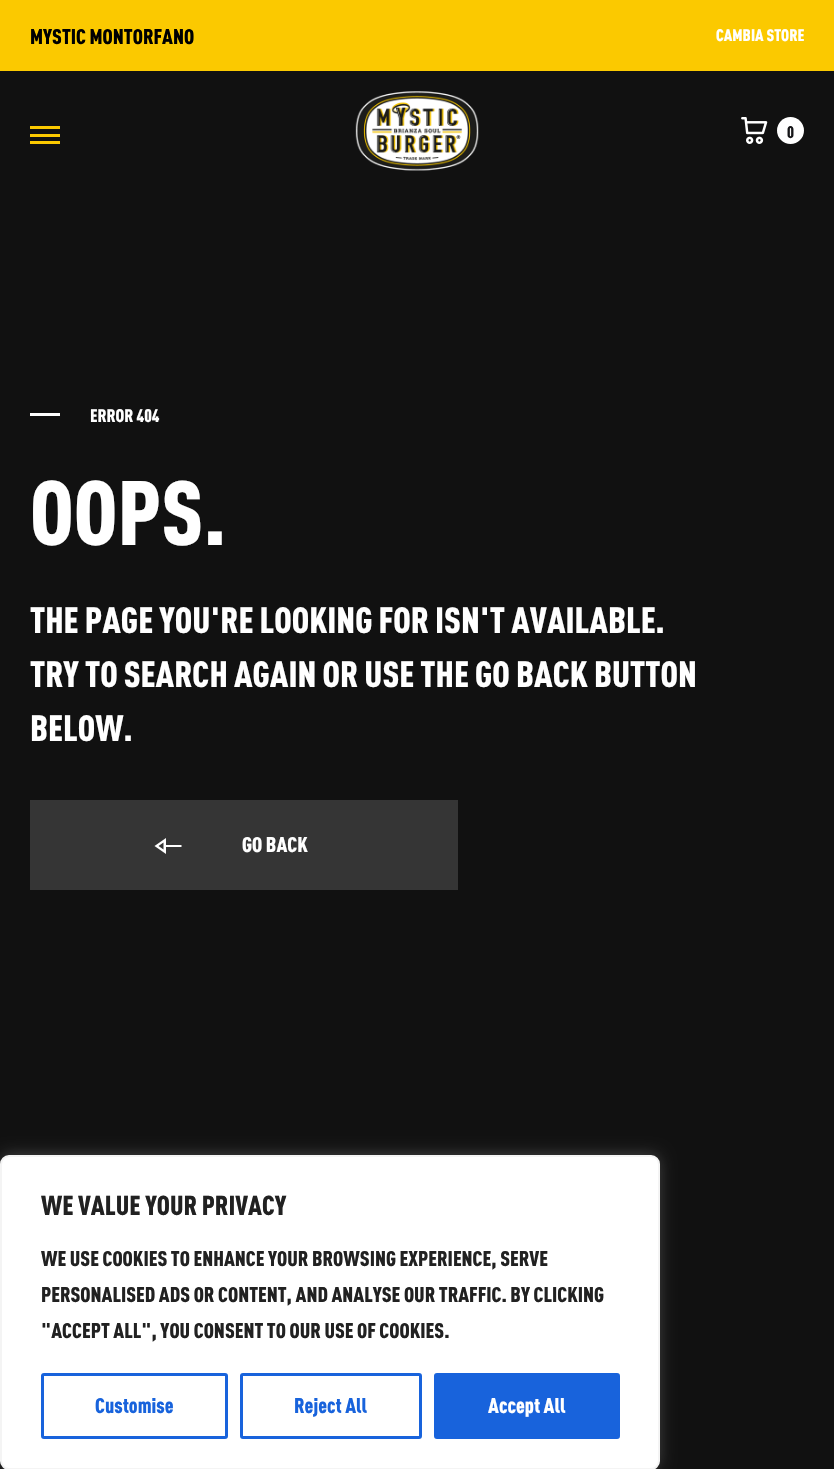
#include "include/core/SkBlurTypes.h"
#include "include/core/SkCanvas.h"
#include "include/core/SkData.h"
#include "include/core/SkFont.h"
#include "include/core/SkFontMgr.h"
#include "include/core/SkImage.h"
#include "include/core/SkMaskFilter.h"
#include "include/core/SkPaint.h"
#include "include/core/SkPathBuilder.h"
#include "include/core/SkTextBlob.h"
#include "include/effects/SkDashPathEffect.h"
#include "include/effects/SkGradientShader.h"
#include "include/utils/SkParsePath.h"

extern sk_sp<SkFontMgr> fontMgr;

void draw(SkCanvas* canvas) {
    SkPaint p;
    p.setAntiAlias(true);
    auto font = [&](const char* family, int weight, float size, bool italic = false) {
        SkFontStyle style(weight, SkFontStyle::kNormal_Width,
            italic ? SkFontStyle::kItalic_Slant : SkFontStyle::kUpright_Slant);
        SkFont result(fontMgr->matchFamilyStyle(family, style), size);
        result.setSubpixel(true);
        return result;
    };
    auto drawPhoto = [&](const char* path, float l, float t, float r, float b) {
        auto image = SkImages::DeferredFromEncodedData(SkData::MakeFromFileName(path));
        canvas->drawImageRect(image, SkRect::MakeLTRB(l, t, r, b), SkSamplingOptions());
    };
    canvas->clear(0xFF111111);
    p.setColor(0xFFFBC900);
    canvas->drawRect(SkRect::MakeLTRB(0, 0, 834, 71), p);
    auto font1 = font("DIN", 900, 21);
    p.setColor(0xFF000000);
    canvas->drawString("MYSTIC MONTORFANO", 30, 44, font1, p);
    auto font2 = font("DIN", 900, 16.5f);
    p.setColor(0xFFFFFFFF);
    canvas->drawString("CAMBIA STORE", 716, 41, font2, p);
    {
        const struct { float l, t, r, b; SkColor color; } items[] = {
            {30, 134, 60, 137, 0xFFFBC900},
            {30, 126, 60, 129, 0xFFFBC900},
            {30, 141, 60, 144, 0xFFFBC900},
        };
        for (auto [l, t, r, b, color] : items) {
            p.setColor(color);
            canvas->drawRect(SkRect::MakeLTRB(l, t, r, b), p);
        }
    }
    drawPhoto("media/1.png", 355, 91, 479, 171);
    drawPhoto("media/2.png", 741, 117, 768, 144);
    p.setColor(0xFFFFFFFF);
    canvas->drawCircle(790.5f, 130.5f, 13.5f, p);
    p.setColor(0xFF161619);
    canvas->drawString("0", 787, 138, font2, p);
    p.setColor(0xFFFFFFFF);
    canvas->drawRect(SkRect::MakeLTRB(30, 413, 60, 416), p);
    auto font3 = font("DIN", 900, 18);
    canvas->drawString("ERROR 404", 90, 422, font3, p);
    auto font4 = font("DIN", 900, 90);
    canvas->drawString("OOPS.", 30, 545, font4, p);
    auto font5 = font("DIN", 900, 36);
    {
        const struct { const char* s; float x, y; } items[] = {
            {"THE PAGE YOU'RE LOOKING FOR ISN'T AVAILABLE.", 30, 633},
            {"TRY TO SEARCH AGAIN OR USE THE GO BACK BUTTON", 30, 687},
            {"BELOW.", 30, 741},
        };
        for (auto [s, x, y] : items) {
            canvas->drawString(s, x, y, font5, p);
        }
    }
    p.setColor(0xFF353535);
    canvas->drawRect(SkRect::MakeLTRB(30, 800, 458, 890), p);
    p.setColor(0xFFFFFFFF);
    canvas->drawPath(SkPathBuilder().moveTo(166, 847).lineTo(181.5f, 847).lineTo(181.5f, 845).lineTo(166, 845).lineTo(166, 838).lineTo(154.5f, 846).lineTo(166, 854).close().moveTo(158.5f, 846).lineTo(163.5f, 842.5f).lineTo(163.5f, 849.5f).close().detach(), p);
    canvas->drawString("GO BACK", 242, 852, font1, p);
    p.setColor(0x4DACABAB);
    p.setMaskFilter(SkMaskFilter::MakeBlur(kNormal_SkBlurStyle, 7.5f));
    canvas->drawRoundRect(SkRect::MakeLTRB(0, 1154, 660, 1469), 9, 9, p);
    p.setMaskFilter(nullptr);
    p.setColor(0xFFFFFFFF);
    canvas->drawRoundRect(SkRect::MakeLTRB(1, 1156, 659, 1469), 8, 8, p);
    p.setStyle(SkPaint::kStroke_Style);
    p.setStrokeWidth(2);
    p.setColor(0xFFF4F4F4);
    canvas->drawRoundRect(SkRect::MakeLTRB(1, 1156, 659, 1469), 8, 8, p);
    auto font6 = font("DIN", 900, 27);
    p.setStyle(SkPaint::kFill_Style);
    p.setColor(0xFF212121);
    canvas->drawString("WE VALUE YOUR PRIVACY", 41, 1215, font6, p);
    {
        const struct { const char* s; float x, y; } items[] = {
            {"WE USE COOKIES TO ENHANCE YOUR BROWSING EXPERIENCE, SERVE", 41, 1266},
            {"PERSONALISED ADS OR CONTENT, AND ANALYSE OUR TRAFFIC. BY CLICKING", 41, 1302},
            {"\"ACCEPT ALL\", YOU CONSENT TO OUR USE OF COOKIES.", 41, 1338},
        };
        for (auto [s, x, y] : items) {
            canvas->drawString(s, x, y, font1, p);
        }
    }
    p.setStyle(SkPaint::kStroke_Style);
    p.setStrokeWidth(3);
    p.setColor(0xFF1863DC);
    canvas->drawRoundRect(SkRect::MakeLTRB(42.5f, 1374.5f, 226.5f, 1437.5f), 1.5f, 1.5f, p);
    p.setStyle(SkPaint::kFill_Style);
    canvas->drawString("Customise", 95, 1413, font1, p);
    p.setStyle(SkPaint::kStroke_Style);
    canvas->drawRoundRect(SkRect::MakeLTRB(241.5f, 1374.5f, 420.5f, 1437.5f), 1.5f, 1.5f, p);
    p.setStyle(SkPaint::kFill_Style);
    canvas->drawString("Reject All", 294, 1413, font1, p);
    canvas->drawRoundRect(SkRect::MakeLTRB(435.5f, 1374.5f, 618.5f, 1437.5f), 1.5f, 1.5f, p);
    p.setStyle(SkPaint::kStroke_Style);
    canvas->drawRoundRect(SkRect::MakeLTRB(435.5f, 1374.5f, 618.5f, 1437.5f), 1.5f, 1.5f, p);
    p.setStyle(SkPaint::kFill_Style);
    p.setColor(0xFFFFFFFF);
    canvas->drawString("Accept All", 488, 1413, font1, p);
}
